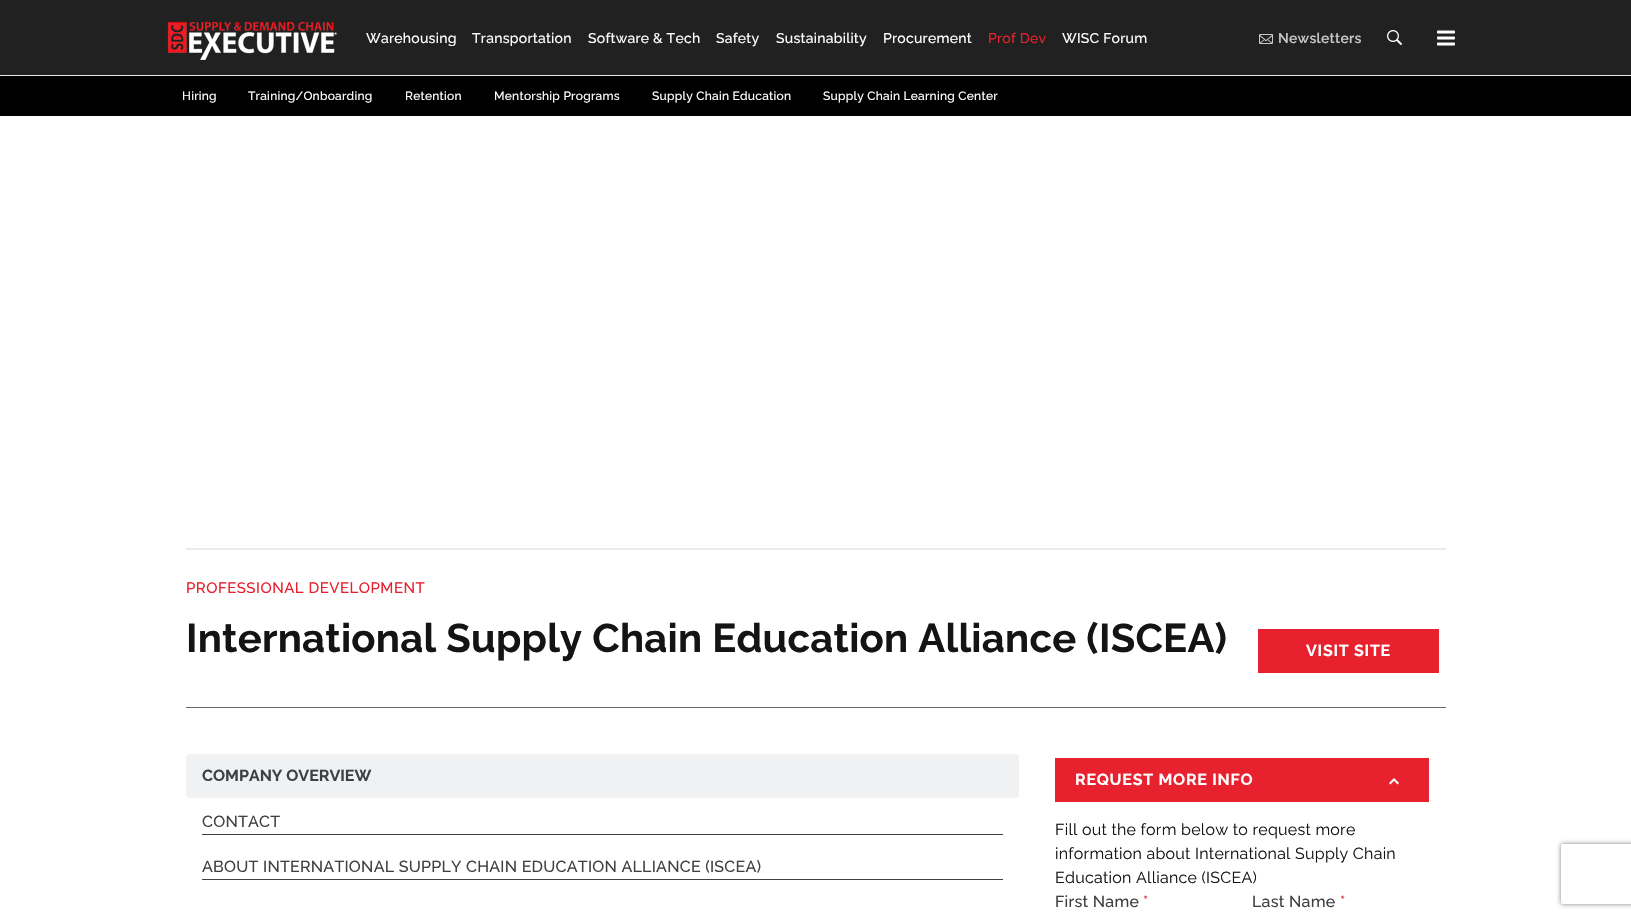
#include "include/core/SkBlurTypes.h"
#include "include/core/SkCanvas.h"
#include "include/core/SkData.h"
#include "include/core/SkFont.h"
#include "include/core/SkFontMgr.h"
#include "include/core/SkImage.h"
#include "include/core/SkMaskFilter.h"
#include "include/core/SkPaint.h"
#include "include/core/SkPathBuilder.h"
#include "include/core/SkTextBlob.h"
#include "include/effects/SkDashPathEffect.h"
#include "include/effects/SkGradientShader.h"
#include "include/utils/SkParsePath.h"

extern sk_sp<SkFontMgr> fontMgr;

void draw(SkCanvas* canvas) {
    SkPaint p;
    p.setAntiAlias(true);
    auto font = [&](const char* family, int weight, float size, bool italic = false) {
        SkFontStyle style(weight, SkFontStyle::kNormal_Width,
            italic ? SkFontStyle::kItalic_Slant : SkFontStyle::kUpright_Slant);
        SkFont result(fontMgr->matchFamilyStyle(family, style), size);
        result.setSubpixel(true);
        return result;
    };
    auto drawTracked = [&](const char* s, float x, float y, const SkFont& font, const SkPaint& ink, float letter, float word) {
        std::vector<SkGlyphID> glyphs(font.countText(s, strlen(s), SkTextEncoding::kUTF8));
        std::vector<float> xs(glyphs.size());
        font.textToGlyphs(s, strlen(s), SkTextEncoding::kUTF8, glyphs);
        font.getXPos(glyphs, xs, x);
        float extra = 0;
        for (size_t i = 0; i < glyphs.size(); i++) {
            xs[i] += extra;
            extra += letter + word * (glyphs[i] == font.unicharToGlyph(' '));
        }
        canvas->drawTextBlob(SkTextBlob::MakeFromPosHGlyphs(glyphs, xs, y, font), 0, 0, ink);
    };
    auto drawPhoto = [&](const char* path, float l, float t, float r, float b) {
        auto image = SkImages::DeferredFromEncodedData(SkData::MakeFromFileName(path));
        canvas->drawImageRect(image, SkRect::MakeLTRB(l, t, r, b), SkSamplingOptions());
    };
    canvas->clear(0xFFFFFFFF);
    p.setColor(0xFF212121);
    canvas->drawRect(SkRect::MakeLTRB(0, 0, 1631, 75), p);
    drawPhoto("media/1.png", 167, 21, 337, 60);
    auto font1 = font("Raleway", 500, 14);
    p.setColor(0xFFFFFFFF);
    {
        const struct { const char* s; float x, y; } items[] = {
            {"Warehousing", 366, 43},
            {"Transportation", 472, 43},
            {"Software & Tech", 588, 43},
            {"Safety", 716, 43},
            {"Sustainability", 776, 43},
            {"Procurement", 883, 43},
        };
        for (auto [s, x, y] : items) {
            drawTracked(s, x, y, font1, p, 0.25f, 0);
        }
    }
    p.setColor(0xFFE7212D);
    drawTracked("Prof Dev", 988, 43, font1, p, 0.25f, 0);
    p.setColor(0xFFFFFFFF);
    drawTracked("WISC Forum", 1062, 43, font1, p, 0.25f, 0);
    drawPhoto("media/2.png", 1259, 34, 1273, 44);
    auto font2 = font("Raleway", 600, 14);
    p.setColor(0xFFC8C8C8);
    drawTracked("Newsletters", 1278, 43, font2, p, 0.25f, 0);
    drawPhoto("media/3.png", 1387, 30, 1402, 45);
    drawPhoto("media/4.png", 1437, 30, 1455, 46);
    p.setColor(0xFF000000);
    canvas->drawRect(SkRect::MakeLTRB(0, 76, 1631, 116), p);
    p.setColor(0xFFE5E7EB);
    canvas->drawRect(SkRect::MakeLTRB(0, 75, 1631, 76), p);
    auto font3 = font("Raleway", 500, 12);
    p.setColor(0xFFFFFFFF);
    {
        const struct { const char* s; float x, y; } items[] = {
            {"Hiring", 182, 100},
            {"Training/Onboarding", 248, 100},
            {"Retention", 405, 100},
            {"Mentorship Programs", 494, 100},
            {"Supply Chain Education", 652, 100},
            {"Supply Chain Learning Center", 823, 100},
        };
        for (auto [s, x, y] : items) {
            drawTracked(s, x, y, font3, p, 0.25f, 0);
        }
    }
    p.setColor(0xFFEBEBEB);
    canvas->drawRect(SkRect::MakeLTRB(186, 548, 1446, 550), p);
    auto font4 = font("Raleway", 500, 15);
    p.setColor(0xFFE7212D);
    drawTracked("PROFESSIONAL DEVELOPMENT", 186, 593, font4, p, 0.5f, 0);
    auto font5 = font("Raleway", 700, 40);
    p.setColor(0xFF141414);
    drawTracked("International Supply Chain Education Alliance (ISCEA)", 186, 652, font5, p, 0.25f, 0);
    p.setColor(0xFFE7212D);
    canvas->drawRect(SkRect::MakeLTRB(1258, 629, 1439, 673), p);
    auto font6 = font("Raleway", 700, 16);
    p.setColor(0xFFFFFFFF);
    drawTracked("VISIT SITE", 1306, 656, font6, p, 0.75f, 0);
    p.setColor(0xFF68686C);
    canvas->drawRect(SkRect::MakeLTRB(186, 707, 1446, 708), p);
    p.setColor(0xFFF0F1F2);
    canvas->drawRoundRect(SkRect::MakeLTRB(186, 754, 1019, 798), 4, 4, p);
    p.setColor(0xFF3F4043);
    canvas->drawString("COMPANY OVERVIEW", 202, 781, font6, p);
    canvas->drawRect(SkRect::MakeLTRB(202, 834, 1003, 835), p);
    auto font7 = font("Raleway", 500, 16);
    drawTracked("CONTACT", 202, 827, font7, p, 0.25f, 0);
    canvas->drawRect(SkRect::MakeLTRB(202, 879, 1003, 880), p);
    drawTracked("ABOUT INTERNATIONAL SUPPLY CHAIN EDUCATION ALLIANCE (ISCEA)", 202, 872, font7, p, 0.25f, 0);
    p.setColor(0xFFE7212D);
    canvas->drawRect(SkRect::MakeLTRB(1055, 758, 1429, 802), p);
    p.setColor(0xFFFFFFFF);
    drawTracked("REQUEST MORE INFO", 1075, 785, font6, p, 0.75f, 0);
    drawPhoto("media/5.png", 1389, 778, 1399, 785);
    auto font8 = font("Raleway", 400, 16);
    p.setColor(0xFF141414);
    {
        const struct { const char* s; float x, y; } items[] = {
            {"Fill out the form below to request more", 1055, 835},
            {"information about International Supply Chain", 1055, 859},
            {"Education Alliance (ISCEA)", 1055, 883},
        };
        for (auto [s, x, y] : items) {
            drawTracked(s, x, y, font8, p, 0.25f, 0);
        }
    }
    p.setColor(0xFF3F4043);
    drawTracked("First Name", 1055, 907, font7, p, 0.25f, 0);
    p.setColor(0xFFDC3545);
    drawTracked("*", 1143, 907, font7, p, 0.25f, 0);
    p.setColor(0xFF3F4043);
    drawTracked("Last Name", 1252, 907, font7, p, 0.25f, 0);
    p.setColor(0xFFDC3545);
    drawTracked("*", 1340, 907, font7, p, 0.25f, 0);
    canvas->save();
    canvas->clipPath(SkPathBuilder(SkPathFillType::kEvenOdd).moveTo(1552, 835).lineTo(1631, 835).lineTo(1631, 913).lineTo(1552, 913).close().moveTo(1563, 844).lineTo(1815, 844).cubicTo(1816, 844, 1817, 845, 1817, 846).lineTo(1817, 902).cubicTo(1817, 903, 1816, 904, 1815, 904).lineTo(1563, 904).cubicTo(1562, 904, 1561, 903, 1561, 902).lineTo(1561, 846).cubicTo(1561, 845, 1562, 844, 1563, 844).close().detach(), true);
    p.setColor(0xFF808080);
    p.setMaskFilter(SkMaskFilter::MakeBlur(kNormal_SkBlurStyle, 2.5f));
    canvas->drawRoundRect(SkRect::MakeLTRB(1561, 844, 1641, 904), 2, 2, p);
    p.setMaskFilter(nullptr);
    canvas->restore();
}
